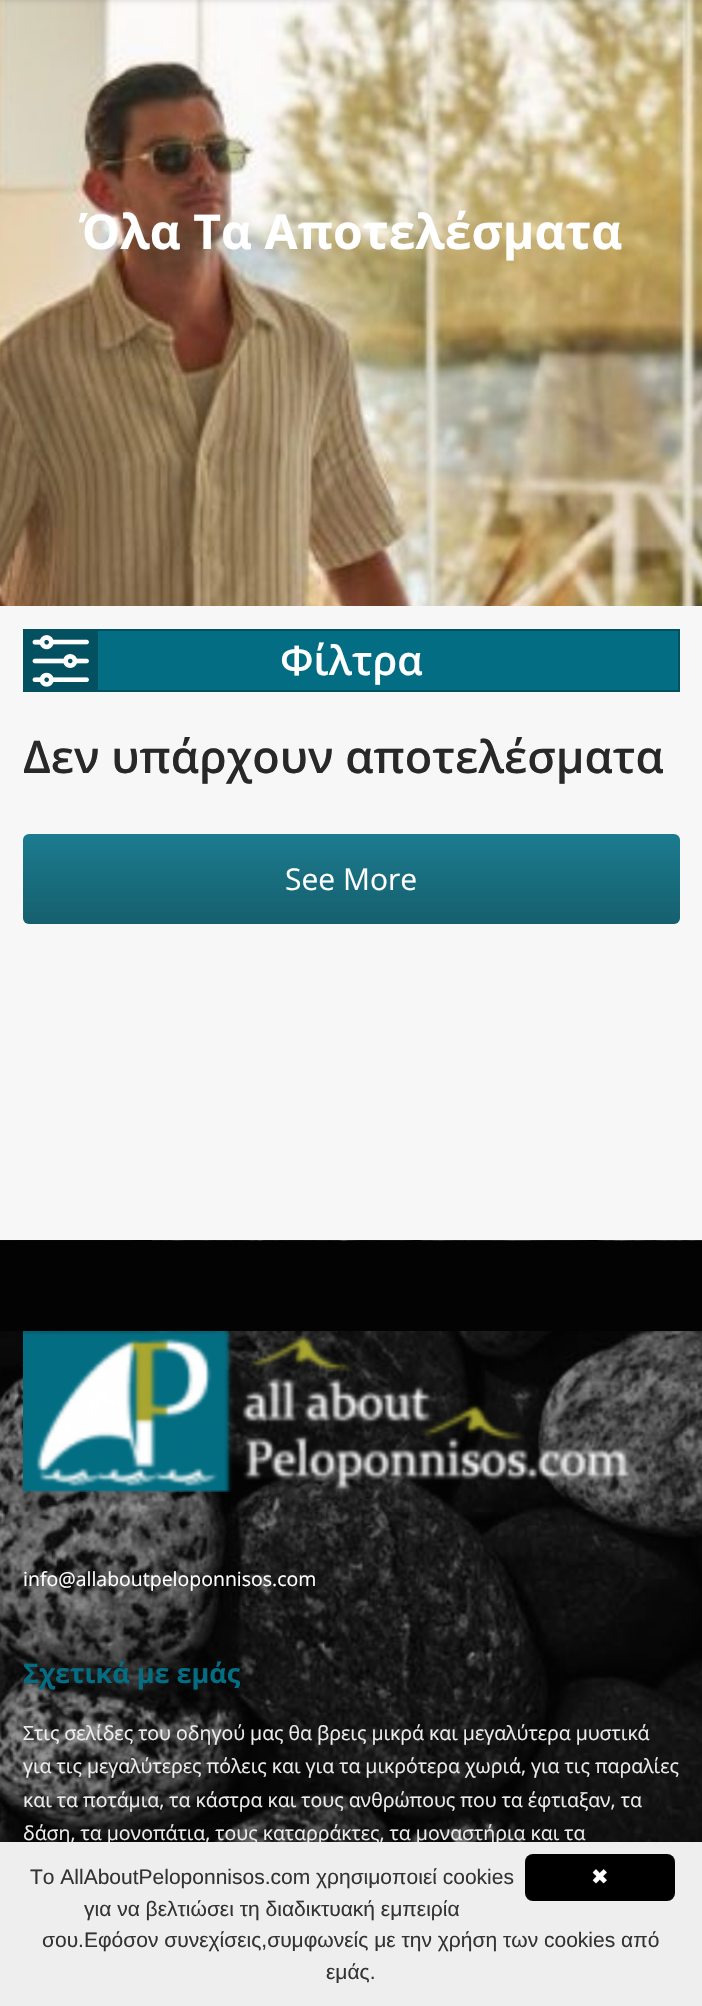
#include "include/core/SkBlurTypes.h"
#include "include/core/SkCanvas.h"
#include "include/core/SkData.h"
#include "include/core/SkFont.h"
#include "include/core/SkFontMgr.h"
#include "include/core/SkImage.h"
#include "include/core/SkMaskFilter.h"
#include "include/core/SkPaint.h"
#include "include/core/SkPathBuilder.h"
#include "include/core/SkTextBlob.h"
#include "include/effects/SkDashPathEffect.h"
#include "include/effects/SkGradientShader.h"
#include "include/utils/SkParsePath.h"

extern sk_sp<SkFontMgr> fontMgr;

void draw(SkCanvas* canvas) {
    SkPaint p;
    p.setAntiAlias(true);
    auto font = [&](const char* family, int weight, float size, bool italic = false) {
        SkFontStyle style(weight, SkFontStyle::kNormal_Width,
            italic ? SkFontStyle::kItalic_Slant : SkFontStyle::kUpright_Slant);
        SkFont result(fontMgr->matchFamilyStyle(family, style), size);
        result.setSubpixel(true);
        return result;
    };
    auto drawPhoto = [&](const char* path, float l, float t, float r, float b) {
        auto image = SkImages::DeferredFromEncodedData(SkData::MakeFromFileName(path));
        canvas->drawImageRect(image, SkRect::MakeLTRB(l, t, r, b), SkSamplingOptions());
    };
    canvas->clear(0xFFF7F7F7);
    drawPhoto("media/1.png", 0, 0, 702, 606);
    p.setColor(0x26030303);
    p.setMaskFilter(SkMaskFilter::MakeBlur(kNormal_SkBlurStyle, 3));
    canvas->drawRect(SkRect::MakeLTRB(0, -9, 702, 0), p);
    p.setMaskFilter(nullptr);
    auto font1 = font("Open Sans", 700, 48);
    p.setColor(0xFFFFFFFF);
    canvas->drawString("Όλα Τα Αποτελέσματα", 79, 249, font1, p);
    p.setColor(0xFF036E83);
    canvas->drawRect(SkRect::MakeLTRB(98, 631, 678, 690), p);
    p.setStyle(SkPaint::kStroke_Style);
    p.setStrokeWidth(2);
    p.setColor(0xFF035160);
    canvas->drawRect(SkRect::MakeLTRB(24, 630, 679, 691), p);
    p.setStyle(SkPaint::kFill_Style);
    canvas->drawRect(SkRect::MakeLTRB(25, 631, 98, 690), p);
    drawPhoto("media/2.png", 32, 635, 89, 687);
    auto font2 = font("Open Sans", 600, 40.5f);
    p.setColor(0xFFFFFFFF);
    canvas->drawString("Φίλτρα", 280, 675, font2, p);
    auto font3 = font("Open Sans", 600, 45);
    p.setColor(0xFF282828);
    canvas->drawString("Δεν υπάρχουν αποτελέσματα", 23, 773, font3, p);
    p.setColor(0xFF1B7C8F);
    canvas->drawRoundRect(SkRect::MakeLTRB(23, 834, 680, 924), 6, 6, p);
    {
        const SkColor colors[] = {0x00030303, 0x3D030303};
        const float stops[] = {0, 1};
        const SkPoint ends[] = {{351, 834}, {351, 924}};
        p.setShader(SkGradientShader::MakeLinear(ends, colors, stops, 2, SkTileMode::kClamp));
        p.setAlpha(255);
    }
    canvas->drawRoundRect(SkRect::MakeLTRB(23, 834, 680, 924), 6, 6, p);
    auto font4 = font("Open Sans", 400, 30);
    p.setShader(nullptr);
    p.setColor(0xFFFFFFFF);
    canvas->drawString("See More", 285, 890, font4, p);
    drawPhoto("media/3.png", 0, 1240, 702, 1842);
    p.setColor(0xFF030303);
    canvas->drawRect(SkRect::MakeLTRB(0, 1241, 702, 1331), p);
    drawPhoto("media/4.png", 23, 1331, 630, 1492);
    auto font5 = font("Open Sans", 400, 19.5f);
    p.setColor(0xFFFFFFFF);
    canvas->drawString("info@allaboutpeloponnisos.com", 23, 1586, font5, p);
    auto font6 = font("Open Sans", 700, 27);
    p.setColor(0xFF036E83);
    canvas->drawString("Σχετικά με εμάς", 23, 1683, font6, p);
    p.setColor(0xFFEDEDED);
    {
        const struct { const char* s; float x, y; } items[] = {
            {"Στις σελίδες του οδηγού μας θα βρεις μικρά και μεγαλύτερα μυστικά", 23, 1740},
            {"για τις μεγαλύτερες πόλεις και για τα μικρότερα χωριά, για τις παραλίες", 23, 1773},
            {"και τα ποτάμια, τα κάστρα και τους ανθρώπους που τα έφτιαξαν, τα", 23, 1807},
            {"δάση, τα μονοπάτια, τους καταρράκτες, τα μοναστήρια και τα", 23, 1840},
        };
        for (auto [s, x, y] : items) {
            canvas->drawString(s, x, y, font5, p);
        }
    }
    p.setColor(0xFFEEEEEE);
    canvas->drawRect(SkRect::MakeLTRB(0, 1842, 702, 2006), p);
    auto font7 = font("Liberation Sans", 400, 21);
    p.setColor(0xFF333333);
    {
        const struct { const char* s; float x, y; } items[] = {
            {"Το AllAboutPeloponnisos.com χρησιμοποιεί cookies", 30, 1884},
            {"για να βελτιώσει τη διαδικτυακή εμπειρία", 84, 1916},
            {"σου.Εφόσον συνεχίσεις,συμφωνείς με την χρήση των cookies από", 42, 1947},
            {"εμάς.", 326, 1979},
        };
        for (auto [s, x, y] : items) {
            canvas->drawString(s, x, y, font7, p);
        }
    }
    p.setColor(0xFF000000);
    canvas->drawRoundRect(SkRect::MakeLTRB(525, 1854, 675, 1901), 8, 8, p);
    auto font8 = font("DejaVu Sans", 400, 21);
    p.setColor(0xFFFFFFFF);
    canvas->drawString("✖", 591, 1884, font8, p);
}
